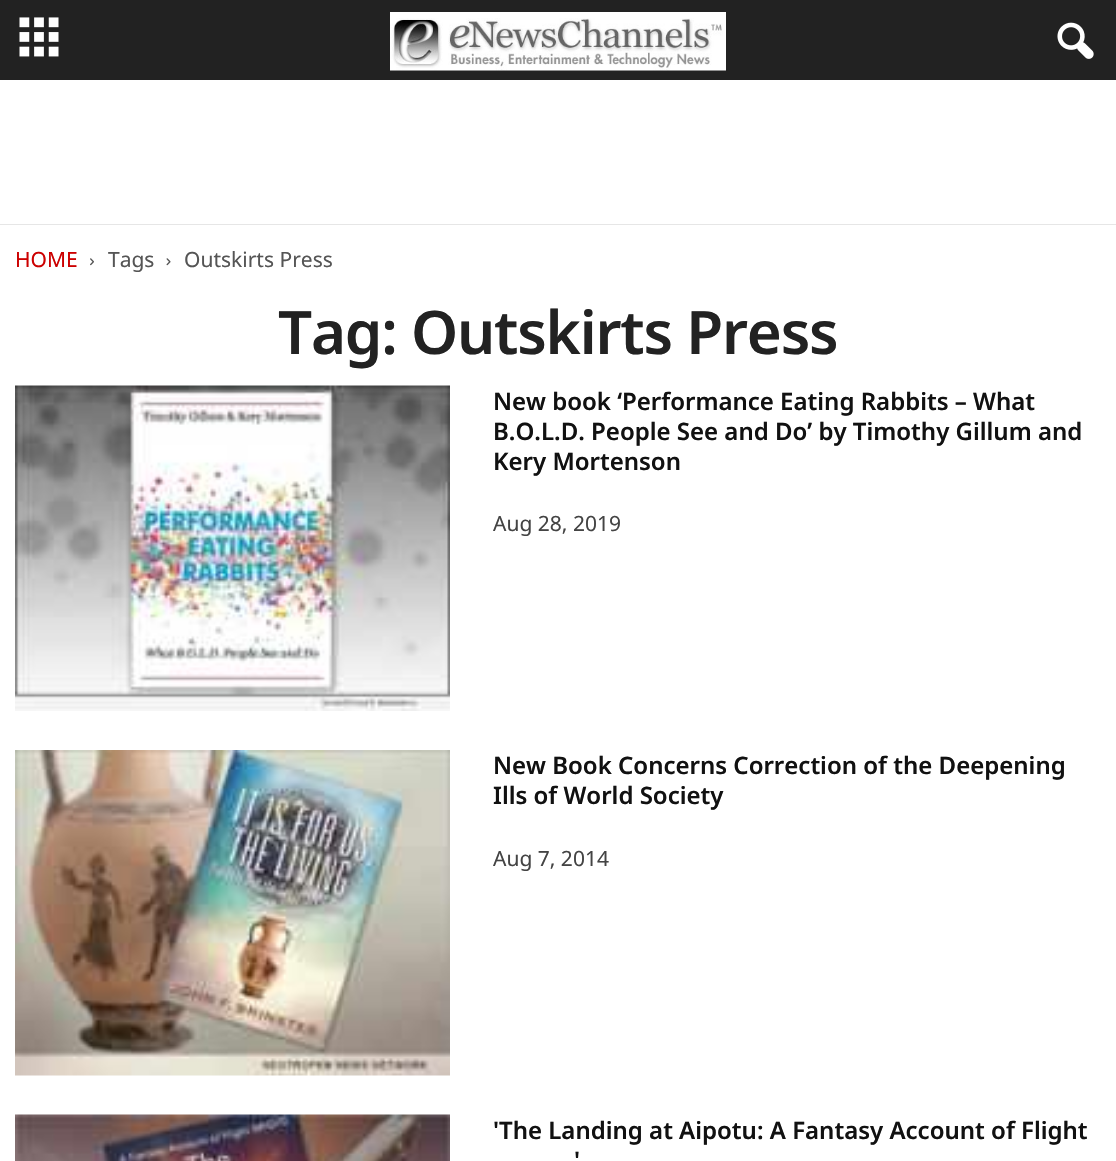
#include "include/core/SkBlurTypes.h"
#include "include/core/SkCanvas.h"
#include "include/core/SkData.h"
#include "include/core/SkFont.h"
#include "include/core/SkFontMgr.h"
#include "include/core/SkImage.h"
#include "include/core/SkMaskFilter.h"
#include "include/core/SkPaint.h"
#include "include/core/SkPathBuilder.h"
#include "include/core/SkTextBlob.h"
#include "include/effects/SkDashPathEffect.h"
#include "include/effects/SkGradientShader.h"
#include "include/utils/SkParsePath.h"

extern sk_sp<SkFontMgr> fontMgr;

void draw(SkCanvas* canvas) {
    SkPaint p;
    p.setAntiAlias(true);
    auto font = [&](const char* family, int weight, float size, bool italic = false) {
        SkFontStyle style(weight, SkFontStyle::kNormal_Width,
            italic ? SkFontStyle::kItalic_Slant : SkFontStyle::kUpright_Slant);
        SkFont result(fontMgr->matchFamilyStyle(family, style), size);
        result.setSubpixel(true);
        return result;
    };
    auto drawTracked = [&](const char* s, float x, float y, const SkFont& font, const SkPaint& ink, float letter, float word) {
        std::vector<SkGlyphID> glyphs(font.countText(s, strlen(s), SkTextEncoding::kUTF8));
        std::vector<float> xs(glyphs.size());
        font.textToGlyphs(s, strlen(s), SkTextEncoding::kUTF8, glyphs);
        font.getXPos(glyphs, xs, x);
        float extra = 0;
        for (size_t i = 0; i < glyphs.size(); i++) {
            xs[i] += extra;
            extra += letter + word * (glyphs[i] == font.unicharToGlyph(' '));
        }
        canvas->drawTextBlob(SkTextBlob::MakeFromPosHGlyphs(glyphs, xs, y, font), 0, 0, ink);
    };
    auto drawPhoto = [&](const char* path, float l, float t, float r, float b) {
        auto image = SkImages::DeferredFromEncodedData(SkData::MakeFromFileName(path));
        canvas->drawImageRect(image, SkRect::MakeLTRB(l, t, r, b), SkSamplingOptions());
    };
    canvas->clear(0xFFFFFFFF);
    p.setColor(0xFF222222);
    canvas->drawRect(SkRect::MakeLTRB(0, 0, 1116, 80), p);
    drawPhoto("media/1.png", 19, 17, 59, 57);
    drawPhoto("media/2.png", 390, 12, 726, 71);
    drawPhoto("media/3.png", 1057, 22, 1094, 59);
    p.setColor(0xFFE6E6E6);
    canvas->drawRect(SkRect::MakeLTRB(0, 224, 1116, 225), p);
    auto font1 = font("Noto Sans", 400, 21);
    p.setColor(0xFFCC0000);
    canvas->drawString("HOME", 15, 267, font1, p);
    drawPhoto("media/4.png", 90, 258, 94, 266);
    p.setColor(0xFF555555);
    canvas->drawString("Tags", 108, 267, font1, p);
    drawPhoto("media/5.png", 166, 258, 171, 266);
    canvas->drawString("Outskirts Press", 184, 267, font1, p);
    auto font2 = font("Noto Sans", 600, 60);
    p.setColor(0xFF222222);
    drawTracked("Tag: Outskirts Press", 278, 354, font2, p, -1.2f, 0);
    drawPhoto("media/6.png", 15, 385, 450, 711);
    auto font3 = font("Noto Sans", 600, 24);
    p.setColor(0xFF111111);
    {
        const struct { const char* s; float x, y; } items[] = {
            {"New book ‘Performance Eating Rabbits – What", 493, 410},
            {"B.O.L.D. People See and Do’ by Timothy Gillum and", 493, 440},
            {"Kery Mortenson", 493, 470},
        };
        for (auto [s, x, y] : items) {
            canvas->drawString(s, x, y, font3, p);
        }
    }
    p.setColor(0xFF444444);
    canvas->drawString("Aug 28, 2019", 493, 531, font1, p);
    drawPhoto("media/7.png", 15, 750, 450, 1076);
    p.setColor(0xFF111111);
    canvas->drawString("New Book Concerns Correction of the Deepening", 493, 774, font3, p);
    canvas->drawString("Ills of World Society", 493, 804, font3, p);
    p.setColor(0xFF444444);
    canvas->drawString("Aug 7, 2014", 493, 866, font1, p);
    drawPhoto("media/8.png", 15, 1114, 450, 1161);
    p.setColor(0xFF111111);
    canvas->drawString("'The Landing at Aipotu: A Fantasy Account of Flight", 493, 1139, font3, p);
    canvas->drawString("'", 574, 1169, font3, p);
}
